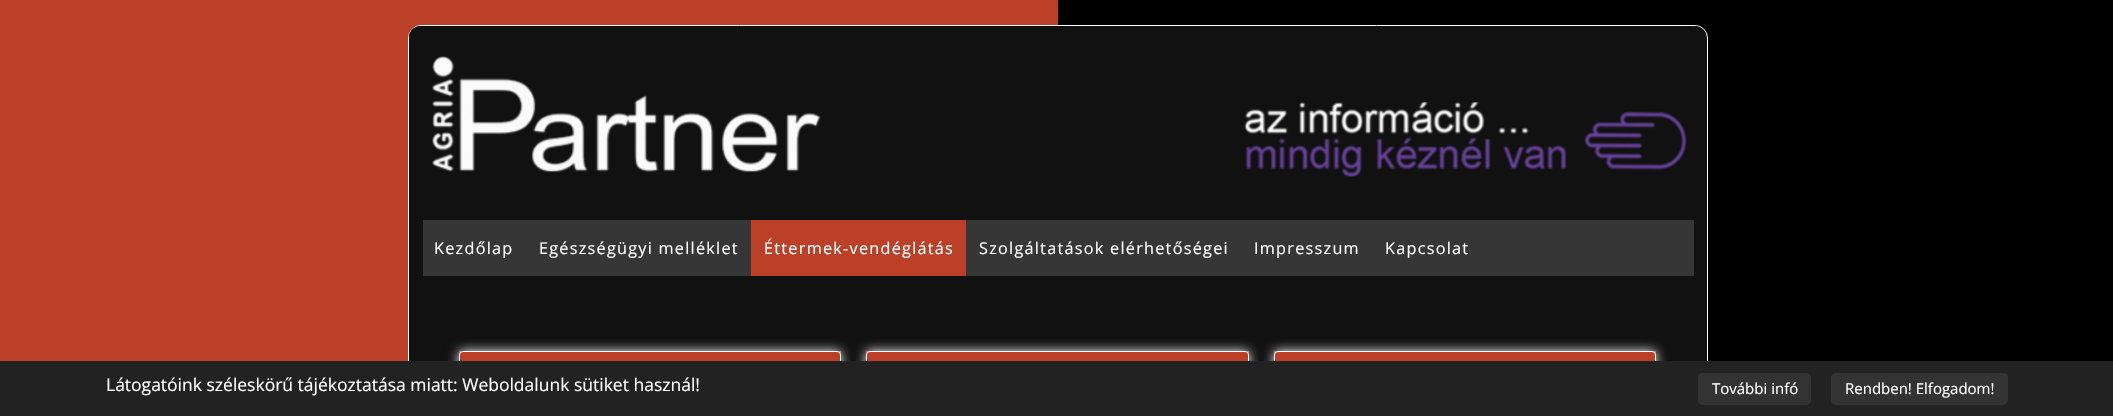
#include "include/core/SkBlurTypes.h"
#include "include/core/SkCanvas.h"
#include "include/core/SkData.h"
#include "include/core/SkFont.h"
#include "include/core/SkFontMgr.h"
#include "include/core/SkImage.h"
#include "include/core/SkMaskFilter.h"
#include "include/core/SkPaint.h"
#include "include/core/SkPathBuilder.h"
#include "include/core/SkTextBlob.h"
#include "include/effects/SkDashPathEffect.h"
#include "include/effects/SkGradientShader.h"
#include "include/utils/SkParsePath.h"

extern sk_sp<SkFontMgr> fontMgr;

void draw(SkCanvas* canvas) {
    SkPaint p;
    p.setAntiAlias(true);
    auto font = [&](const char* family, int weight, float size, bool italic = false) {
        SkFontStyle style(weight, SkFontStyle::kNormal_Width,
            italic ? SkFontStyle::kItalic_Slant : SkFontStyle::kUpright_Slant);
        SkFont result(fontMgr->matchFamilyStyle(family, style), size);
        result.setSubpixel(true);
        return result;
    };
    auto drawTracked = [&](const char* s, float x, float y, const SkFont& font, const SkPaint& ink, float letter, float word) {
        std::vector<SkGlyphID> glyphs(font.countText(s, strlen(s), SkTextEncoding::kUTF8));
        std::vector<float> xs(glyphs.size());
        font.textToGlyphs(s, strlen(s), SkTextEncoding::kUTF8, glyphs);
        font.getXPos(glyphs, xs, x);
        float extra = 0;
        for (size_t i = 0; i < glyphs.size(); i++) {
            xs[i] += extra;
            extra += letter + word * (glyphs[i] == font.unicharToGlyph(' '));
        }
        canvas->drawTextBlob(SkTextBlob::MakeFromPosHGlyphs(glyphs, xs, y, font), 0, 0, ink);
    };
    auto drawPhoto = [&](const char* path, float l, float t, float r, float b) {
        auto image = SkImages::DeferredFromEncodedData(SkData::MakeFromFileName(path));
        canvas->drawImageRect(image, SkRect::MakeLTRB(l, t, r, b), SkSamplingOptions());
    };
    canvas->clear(0xFFBC3F28);
    p.setColor(0xFF000000);
    canvas->drawRect(SkRect::MakeLTRB(1058, 0, 2113, 361), p);
    p.setColor(0xFF111111);
    canvas->drawRoundRect(SkRect::MakeLTRB(408.5f, 25.5f, 1707.5f, 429.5f), 12.5f, 12.5f, p);
    p.setStyle(SkPaint::kStroke_Style);
    p.setStrokeWidth(1);
    p.setColor(0xFFFFFFFF);
    canvas->drawRoundRect(SkRect::MakeLTRB(408.5f, 25.5f, 1707.5f, 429.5f), 12.5f, 12.5f, p);
    p.setStyle(SkPaint::kFill_Style);
    p.setColor(0xFF111111);
    canvas->drawPath(SkPathBuilder().moveTo(420, 26).lineTo(1695, 26).cubicTo(1701, 26, 1706, 31, 1706, 37).lineTo(1706, 220).lineTo(409, 220).lineTo(409, 37).cubicTo(409, 31, 414, 26, 420, 26).close().detach(), p);
    drawPhoto("media/1.png", 432, 56, 821, 173);
    drawPhoto("media/2.png", 1244, 102, 1687, 177);
    p.setColor(0xFF363636);
    canvas->drawRect(SkRect::MakeLTRB(423, 220, 1694, 276), p);
    auto font1 = font("Open Sans", 400, 16.25f);
    p.setColor(0xFFFFFFFF);
    drawTracked("Kezdőlap", 434, 254, font1, p, 1.25f, 0);
    drawTracked("Egészségügyi melléklet", 539, 254, font1, p, 1.25f, 0);
    p.setColor(0xFFBC3F28);
    canvas->drawRect(SkRect::MakeLTRB(751, 220, 966, 276), p);
    p.setColor(0xFFFFFFFF);
    {
        const struct { const char* s; float x, y; } items[] = {
            {"Éttermek-vendéglátás", 764, 254},
            {"Szolgáltatások elérhetőségei", 979, 254},
            {"Impresszum", 1254, 254},
            {"Kapcsolat", 1385, 254},
        };
        for (auto [s, x, y] : items) {
            drawTracked(s, x, y, font1, p, 1.25f, 0);
        }
    }
    p.setColor(0xFFBC3F28);
    canvas->drawRect(SkRect::MakeLTRB(459, 351, 841, 361), p);
    canvas->save();
    canvas->clipPath(SkPathBuilder(SkPathFillType::kEvenOdd).moveTo(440, 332).lineTo(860, 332).lineTo(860, 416).lineTo(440, 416).close().moveTo(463, 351).lineTo(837, 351).cubicTo(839, 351, 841, 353, 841, 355).lineTo(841, 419).cubicTo(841, 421, 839, 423, 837, 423).lineTo(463, 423).cubicTo(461, 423, 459, 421, 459, 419).lineTo(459, 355).cubicTo(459, 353, 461, 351, 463, 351).close().detach(), true);
    p.setColor(0xFFFFFFFF);
    p.setMaskFilter(SkMaskFilter::MakeBlur(kNormal_SkBlurStyle, 6));
    canvas->drawRoundRect(SkRect::MakeLTRB(459, 351, 841, 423), 4, 4, p);
    p.setMaskFilter(nullptr);
    canvas->restore();
    p.setStyle(SkPaint::kStroke_Style);
    canvas->drawRoundRect(SkRect::MakeLTRB(459.5f, 351.5f, 840.5f, 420.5f), 3.5f, 3.5f, p);
    p.setStyle(SkPaint::kFill_Style);
    p.setColor(0xFFBC3F28);
    canvas->drawRect(SkRect::MakeLTRB(866, 351, 1249, 361), p);
    canvas->save();
    canvas->clipPath(SkPathBuilder(SkPathFillType::kEvenOdd).moveTo(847, 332).lineTo(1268, 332).lineTo(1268, 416).lineTo(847, 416).close().moveTo(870, 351).lineTo(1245, 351).cubicTo(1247, 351, 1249, 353, 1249, 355).lineTo(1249, 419).cubicTo(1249, 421, 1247, 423, 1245, 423).lineTo(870, 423).cubicTo(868, 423, 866, 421, 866, 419).lineTo(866, 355).cubicTo(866, 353, 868, 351, 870, 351).close().detach(), true);
    p.setColor(0xFFFFFFFF);
    p.setMaskFilter(SkMaskFilter::MakeBlur(kNormal_SkBlurStyle, 6));
    canvas->drawRoundRect(SkRect::MakeLTRB(866, 351, 1249, 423), 4, 4, p);
    p.setMaskFilter(nullptr);
    canvas->restore();
    p.setStyle(SkPaint::kStroke_Style);
    canvas->drawRoundRect(SkRect::MakeLTRB(866.5f, 351.5f, 1248.5f, 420.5f), 3.5f, 3.5f, p);
    p.setStyle(SkPaint::kFill_Style);
    p.setColor(0xFFBC3F28);
    canvas->drawRect(SkRect::MakeLTRB(1274, 351, 1656, 361), p);
    canvas->save();
    canvas->clipPath(SkPathBuilder(SkPathFillType::kEvenOdd).moveTo(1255, 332).lineTo(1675, 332).lineTo(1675, 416).lineTo(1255, 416).close().moveTo(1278, 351).lineTo(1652, 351).cubicTo(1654, 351, 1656, 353, 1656, 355).lineTo(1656, 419).cubicTo(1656, 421, 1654, 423, 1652, 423).lineTo(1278, 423).cubicTo(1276, 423, 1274, 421, 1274, 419).lineTo(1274, 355).cubicTo(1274, 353, 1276, 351, 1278, 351).close().detach(), true);
    p.setColor(0xFFFFFFFF);
    p.setMaskFilter(SkMaskFilter::MakeBlur(kNormal_SkBlurStyle, 6));
    canvas->drawRoundRect(SkRect::MakeLTRB(1274, 351, 1656, 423), 4, 4, p);
    p.setMaskFilter(nullptr);
    canvas->restore();
    p.setStyle(SkPaint::kStroke_Style);
    canvas->drawRoundRect(SkRect::MakeLTRB(1274.5f, 351.5f, 1655.5f, 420.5f), 3.5f, 3.5f, p);
    p.setStyle(SkPaint::kFill_Style);
    p.setColor(0xFF222222);
    canvas->drawRect(SkRect::MakeLTRB(0, 361, 2113, 416), p);
    auto font2 = font("Open Sans", 400, 17.5f);
    p.setColor(0xFFFFFFFF);
    canvas->drawString("Látogatóink széleskörű tájékoztatása miatt: Weboldalunk sütiket használ!", 106, 391, font2, p);
    p.setColor(0xFF333333);
    canvas->drawRoundRect(SkRect::MakeLTRB(1698, 373, 1811, 405), 5, 5, p);
    auto font3 = font("Open Sans", 400, 15);
    p.setColor(0xFFFFFFFF);
    canvas->drawString("További infó", 1712, 394, font3, p);
    p.setColor(0xFF333333);
    canvas->drawRoundRect(SkRect::MakeLTRB(1831, 373, 2008, 405), 5, 5, p);
    p.setColor(0xFFFFFFFF);
    canvas->drawString("Rendben! Elfogadom!", 1845, 394, font3, p);
}
